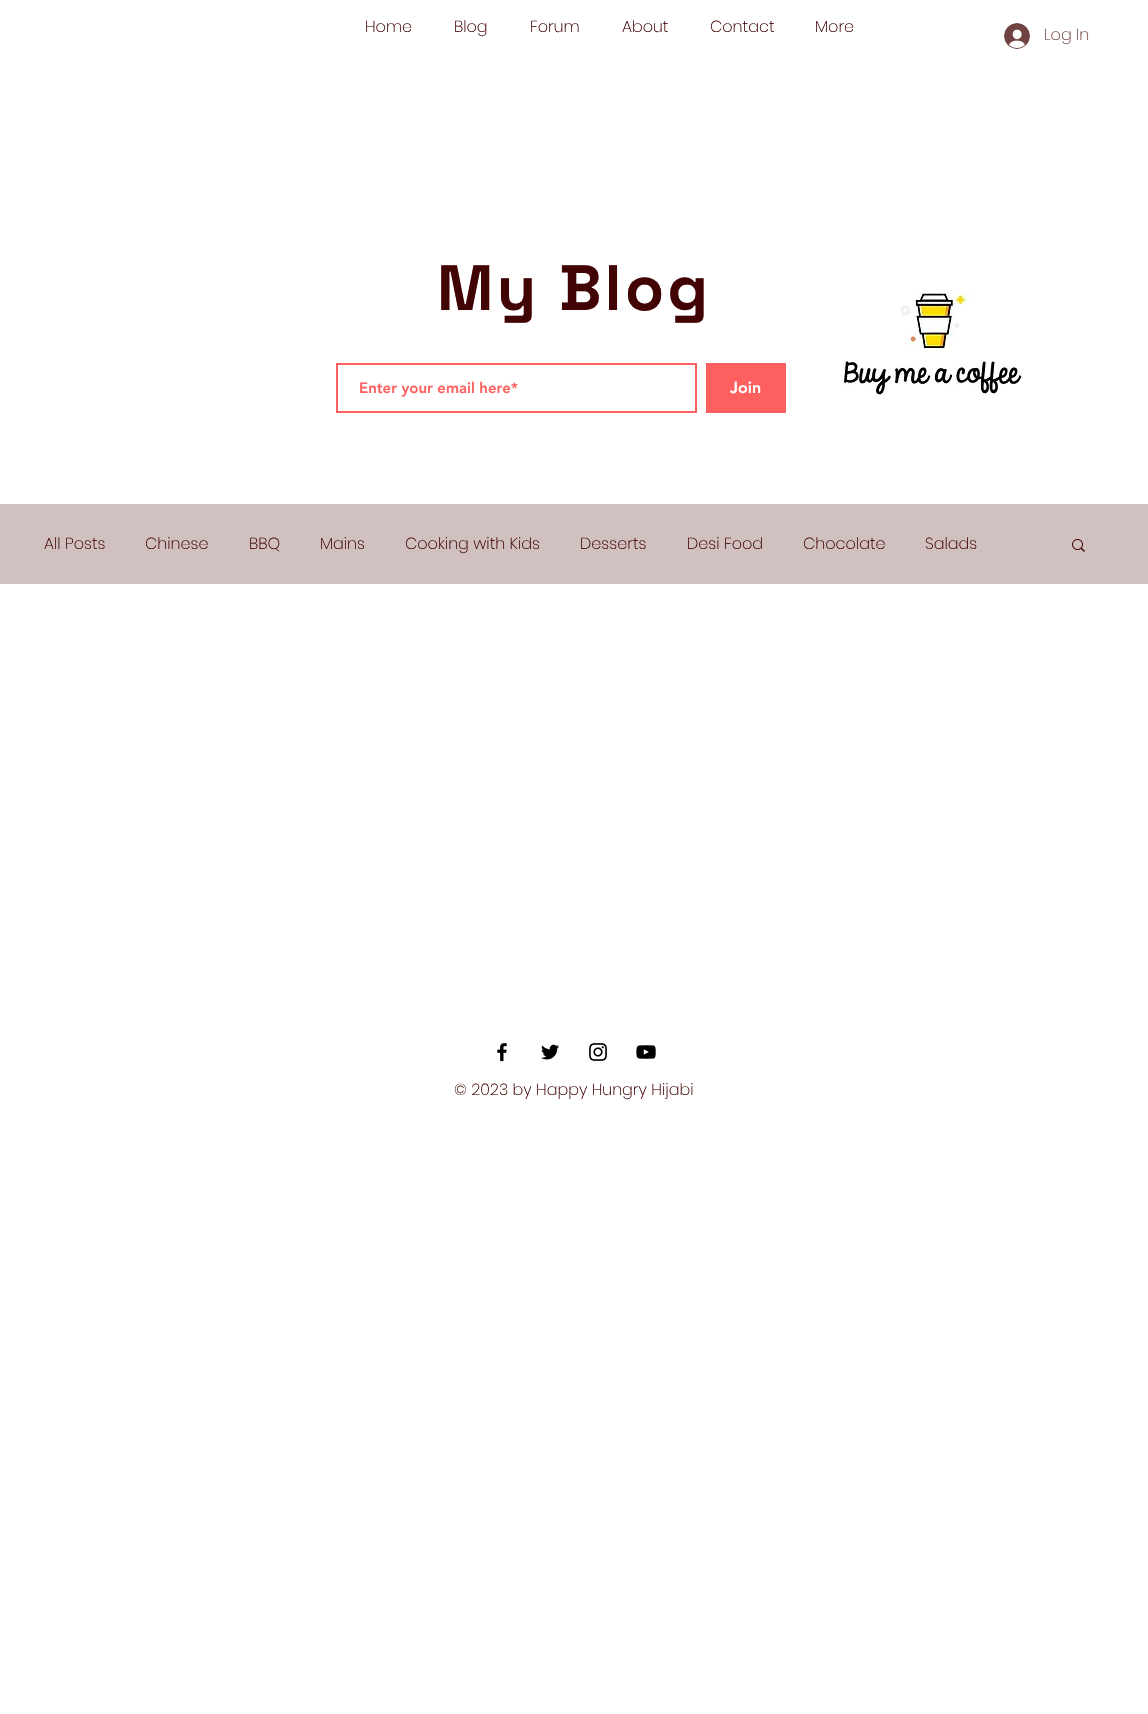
#include "include/core/SkBlurTypes.h"
#include "include/core/SkCanvas.h"
#include "include/core/SkData.h"
#include "include/core/SkFont.h"
#include "include/core/SkFontMgr.h"
#include "include/core/SkImage.h"
#include "include/core/SkMaskFilter.h"
#include "include/core/SkPaint.h"
#include "include/core/SkPathBuilder.h"
#include "include/core/SkTextBlob.h"
#include "include/effects/SkDashPathEffect.h"
#include "include/effects/SkGradientShader.h"
#include "include/utils/SkParsePath.h"

extern sk_sp<SkFontMgr> fontMgr;

void draw(SkCanvas* canvas) {
    SkPaint p;
    p.setAntiAlias(true);
    auto font = [&](const char* family, int weight, float size, bool italic = false) {
        SkFontStyle style(weight, SkFontStyle::kNormal_Width,
            italic ? SkFontStyle::kItalic_Slant : SkFontStyle::kUpright_Slant);
        SkFont result(fontMgr->matchFamilyStyle(family, style), size);
        result.setSubpixel(true);
        return result;
    };
    auto drawTracked = [&](const char* s, float x, float y, const SkFont& font, const SkPaint& ink, float letter, float word) {
        std::vector<SkGlyphID> glyphs(font.countText(s, strlen(s), SkTextEncoding::kUTF8));
        std::vector<float> xs(glyphs.size());
        font.textToGlyphs(s, strlen(s), SkTextEncoding::kUTF8, glyphs);
        font.getXPos(glyphs, xs, x);
        float extra = 0;
        for (size_t i = 0; i < glyphs.size(); i++) {
            xs[i] += extra;
            extra += letter + word * (glyphs[i] == font.unicharToGlyph(' '));
        }
        canvas->drawTextBlob(SkTextBlob::MakeFromPosHGlyphs(glyphs, xs, y, font), 0, 0, ink);
    };
    auto drawPhoto = [&](const char* path, float l, float t, float r, float b) {
        auto image = SkImages::DeferredFromEncodedData(SkData::MakeFromFileName(path));
        canvas->drawImageRect(image, SkRect::MakeLTRB(l, t, r, b), SkSamplingOptions());
    };
    canvas->clear(0xFFFFFFFF);
    auto font1 = font("Poppins", 200, 16);
    p.setColor(0xFF410303);
    {
        const struct { const char* s; float x, y; } items[] = {
            {"Home", 365, 32},
            {"Blog", 454, 32},
            {"Forum", 530, 32},
            {"About", 622, 32},
            {"Contact", 710, 32},
            {"More", 815, 32},
        };
        for (auto [s, x, y] : items) {
            canvas->drawString(s, x, y, font1, p);
        }
    }
    drawPhoto("media/1.png", 1004, 23, 1030, 49);
    p.setColor(0xFF714242);
    canvas->drawString("Log In", 1044, 40, font1, p);
    auto font2 = font("Space Grotesk", 700, 64);
    p.setColor(0xFF410303);
    drawTracked("My Blog", 437, 310, font2, p, 3.25f, 0);
    drawPhoto("media/2.png", 843, 290, 1023, 396);
    p.setStyle(SkPaint::kStroke_Style);
    p.setStrokeWidth(2);
    p.setColor(0xFFFE6060);
    canvas->drawRect(SkRect::MakeLTRB(337, 364, 696, 412), p);
    auto font3 = font("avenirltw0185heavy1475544", 900, 15);
    p.setStyle(SkPaint::kFill_Style);
    canvas->drawString("Enter your email here*", 359, 393, font3, p);
    canvas->drawRect(SkRect::MakeLTRB(706, 363, 786, 413), p);
    auto font4 = font("avenirltw0185heavy1475544", 900, 16);
    p.setColor(0xFFFFFFFF);
    canvas->drawString("Join", 730, 393, font4, p);
    p.setColor(0xFFD0C0C0);
    canvas->drawRect(SkRect::MakeLTRB(0, 504, 1148, 584), p);
    p.setColor(0xFF410303);
    {
        const struct { const char* s; float x, y; } items[] = {
            {"All Posts", 44, 549},
            {"Chinese", 145, 549},
            {"BBQ", 249, 549},
            {"Mains", 320, 549},
            {"Cooking with Kids", 405, 549},
            {"Desserts", 580, 549},
            {"Desi Food", 687, 549},
            {"Chocolate", 803, 549},
            {"Salads", 925, 549},
        };
        for (auto [s, x, y] : items) {
            canvas->drawString(s, x, y, font1, p);
        }
    }
    drawPhoto("media/3.png", 1072, 539, 1085, 552);
    drawPhoto("media/4.png", 497, 1042, 507, 1062);
    drawPhoto("media/5.png", 541, 1044, 559, 1060);
    drawPhoto("media/6.png", 589, 1043, 607, 1061);
    drawPhoto("media/7.png", 636, 1045, 656, 1059);
    canvas->drawString("© 2023 by Happy Hungry Hijabi", 454, 1095, font1, p);
}
